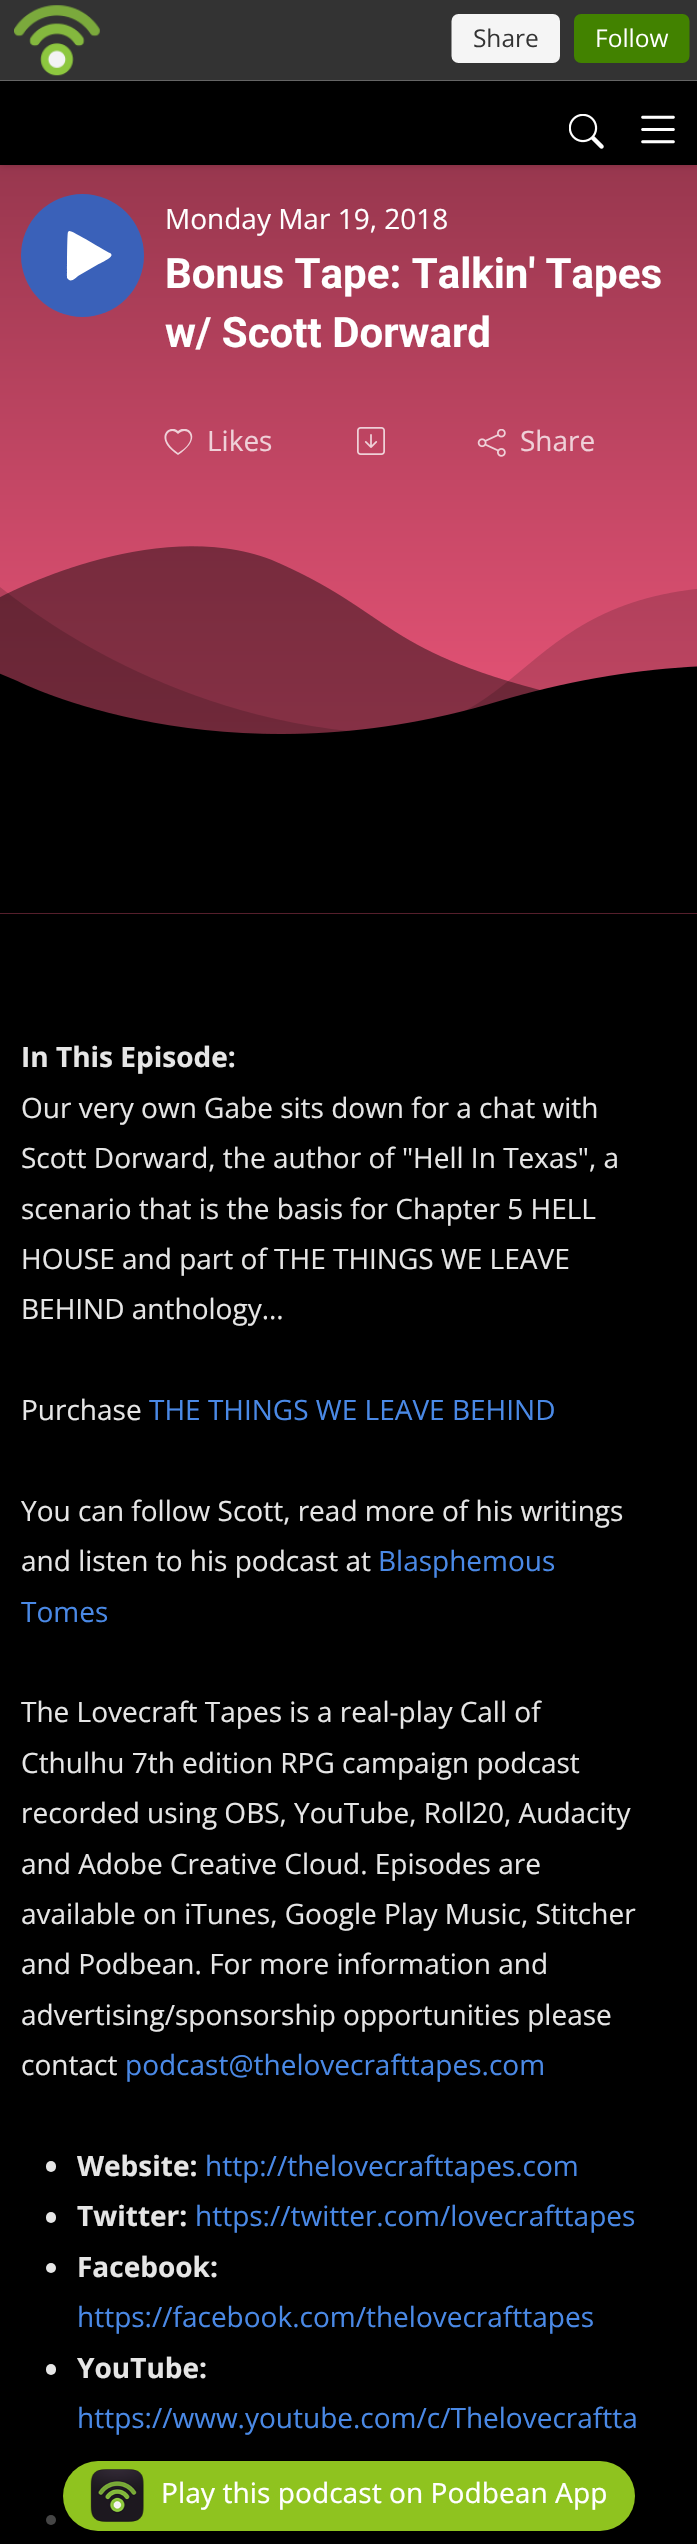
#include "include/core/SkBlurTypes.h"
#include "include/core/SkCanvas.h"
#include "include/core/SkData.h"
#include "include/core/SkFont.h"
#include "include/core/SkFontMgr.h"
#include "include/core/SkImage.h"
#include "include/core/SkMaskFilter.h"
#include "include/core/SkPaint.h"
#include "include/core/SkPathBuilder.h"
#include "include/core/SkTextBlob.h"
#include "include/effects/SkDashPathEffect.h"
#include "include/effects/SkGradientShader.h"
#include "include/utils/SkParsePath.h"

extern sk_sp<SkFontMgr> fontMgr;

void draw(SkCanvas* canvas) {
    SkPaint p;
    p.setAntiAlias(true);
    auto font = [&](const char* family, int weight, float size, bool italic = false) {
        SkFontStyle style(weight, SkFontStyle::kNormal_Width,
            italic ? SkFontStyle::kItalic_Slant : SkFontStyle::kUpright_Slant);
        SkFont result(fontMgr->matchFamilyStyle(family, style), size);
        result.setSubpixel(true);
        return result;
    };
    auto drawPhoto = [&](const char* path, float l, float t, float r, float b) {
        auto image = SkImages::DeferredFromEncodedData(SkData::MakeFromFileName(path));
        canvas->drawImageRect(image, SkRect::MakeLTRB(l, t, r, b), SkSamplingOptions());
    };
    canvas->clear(0xFF000000);
    p.setColor(0xFF333333);
    canvas->drawRect(SkRect::MakeLTRB(0, 0, 697, 5), p);
    {
        const SkColor colors[] = {0xFFFF5C83, 0xFF401721};
        const float stops[] = {0, 1};
        const SkPoint ends[] = {{349, 914}, {349, -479}};
        p.setShader(SkGradientShader::MakeLinear(ends, colors, stops, 2, SkTileMode::kClamp));
        p.setAlpha(255);
    }
    canvas->drawRect(SkRect::MakeLTRB(0, 165, 697, 914), p);
    p.setShader(nullptr);
    p.setColor(0x33000000);
    p.setMaskFilter(SkMaskFilter::MakeBlur(kNormal_SkBlurStyle, 3.5f));
    canvas->drawRect(SkRect::MakeLTRB(0, 81, 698, 165), p);
    p.setMaskFilter(nullptr);
    drawPhoto("media/1.png", 0, 5, 697, 81);
    drawPhoto("media/2.png", 569, 114, 604, 149);
    drawPhoto("media/3.png", 641, 115, 675, 144);
    p.setColor(0xFF3A61B9);
    canvas->drawCircle(82.5f, 255.5f, 61.5f, p);
    p.setColor(0xFFFFFFFF);
    canvas->drawPath(SkPathBuilder().moveTo(110, 253).cubicTo(105, 251, 72, 230, 69, 231).lineTo(68, 232).cubicTo(67, 233, 67, 274, 67, 278).lineTo(69, 280).cubicTo(72, 282, 77, 277, 78, 276).lineTo(97, 265).cubicTo(107, 260, 115, 256, 110, 253).close().detach(), p);
    auto font1 = font("Open Sans", 400, 28);
    canvas->drawString("Monday Mar 19, 2018", 165, 229, font1, p);
    auto font2 = font("Roboto", 700, 42);
    canvas->drawString("Bonus Tape: Talkin' Tapes", 165, 288, font2, p);
    canvas->drawString("w/ Scott Dorward", 165, 347, font2, p);
    canvas->save();
    canvas->clipRect(SkRect::MakeLTRB(161, 429, 196, 457));
    p.setColor(0xBFFFFFFF);
    canvas->drawPath(SkPathBuilder().moveTo(178, 434).cubicTo(172, 427, 164, 433, 167, 441).cubicTo(169, 446, 174, 450, 178, 453).cubicTo(183, 450, 188, 446, 190, 441).cubicTo(193, 433, 185, 427, 178, 434).close().moveTo(178, 455).cubicTo(152, 438, 170, 423, 178, 431).cubicTo(187, 423, 205, 437, 178, 455).close().detach(), p);
    canvas->restore();
    p.setColor(0xFFEFD0D8);
    canvas->drawString("Likes", 207, 451, font1, p);
    drawPhoto("media/4.png", 357, 427, 385, 455);
    drawPhoto("media/5.png", 477, 429, 506, 457);
    canvas->drawString("Share", 520, 451, font1, p);
    drawPhoto("media/6.png", 0, 546, 697, 914);
    auto font3 = font("Open Sans", 700, 28);
    p.setColor(0xFFE6E6E6);
    canvas->drawString("In This Episode:", 21, 1067, font3, p);
    {
        const struct { const char* s; float x, y; } items[] = {
            {"Our very own Gabe sits down for a chat with", 21, 1118},
            {"Scott Dorward, the author of \"Hell In Texas\", a", 21, 1168},
            {"scenario that is the basis for Chapter 5 HELL", 21, 1219},
            {"HOUSE and part of THE THINGS WE LEAVE", 21, 1269},
            {"BEHIND anthology...", 21, 1319},
            {"Purchase", 21, 1420},
        };
        for (auto [s, x, y] : items) {
            canvas->drawString(s, x, y, font1, p);
        }
    }
    p.setColor(0xFF4A89E6);
    canvas->drawString("THE THINGS WE LEAVE BEHIND", 149, 1420, font1, p);
    p.setColor(0xFFE6E6E6);
    canvas->drawString("You can follow Scott, read more of his writings", 21, 1521, font1, p);
    canvas->drawString("and listen to his podcast at", 21, 1571, font1, p);
    p.setColor(0xFF4A89E6);
    canvas->drawString("Blasphemous", 378, 1571, font1, p);
    canvas->drawString("Tomes", 21, 1622, font1, p);
    p.setColor(0xFFE6E6E6);
    {
        const struct { const char* s; float x, y; } items[] = {
            {"The Lovecraft Tapes is a real-play Call of", 21, 1722},
            {"Cthulhu 7th edition RPG campaign podcast", 21, 1773},
            {"recorded using OBS, YouTube, Roll20, Audacity", 21, 1823},
            {"and Adobe Creative Cloud. Episodes are", 21, 1874},
            {"available on iTunes, Google Play Music, Stitcher", 21, 1924},
            {"and Podbean. For more information and", 21, 1974},
            {"advertising/sponsorship opportunities please", 21, 2025},
            {"contact", 21, 2075},
        };
        for (auto [s, x, y] : items) {
            canvas->drawString(s, x, y, font1, p);
        }
    }
    p.setColor(0xFF4A89E6);
    canvas->drawString("podcast@thelovecrafttapes.com", 125, 2075, font1, p);
    p.setColor(0xFFE6E6E6);
    canvas->drawRoundRect(SkRect::MakeLTRB(46, 2161, 56, 2172), 5, 5, p);
    canvas->drawString("Website:", 77, 2176, font3, p);
    p.setColor(0xFF4A89E6);
    canvas->drawString("http://thelovecrafttapes.com", 205, 2176, font1, p);
    p.setColor(0xFFE6E6E6);
    canvas->drawRoundRect(SkRect::MakeLTRB(46, 2212, 56, 2223), 5, 5, p);
    canvas->drawString("Twitter:", 77, 2226, font3, p);
    p.setColor(0xFF4A89E6);
    canvas->drawString("https://twitter.com/lovecrafttapes", 195, 2226, font1, p);
    p.setColor(0xFFE6E6E6);
    canvas->drawCircle(51, 2268, 5, p);
    canvas->drawString("Facebook:", 77, 2277, font3, p);
    p.setColor(0xFF4A89E6);
    canvas->drawString("https://facebook.com/thelovecrafttapes", 77, 2327, font1, p);
    p.setColor(0xFFE6E6E6);
    canvas->drawRoundRect(SkRect::MakeLTRB(46, 2364, 56, 2375), 5, 5, p);
    canvas->drawString("YouTube:", 77, 2378, font3, p);
    p.setColor(0xFF4A89E6);
    canvas->drawString("https://www.youtube.com/c/Thelovecraftta", 77, 2428, font1, p);
    p.setColor(0xFF454545);
    canvas->drawCircle(51, 2520, 5, p);
    p.setColor(0xFF8FC31F);
    canvas->drawRoundRect(SkRect::MakeLTRB(63, 2461, 635, 2531), 35, 35, p);
    drawPhoto("media/7.png", 90, 2469, 144, 2522);
    auto font4 = font("Noto Sans", 400, 28);
    p.setColor(0xFFFFFFFF);
    canvas->drawString("Play this podcast on Podbean App", 161, 2503, font4, p);
}
